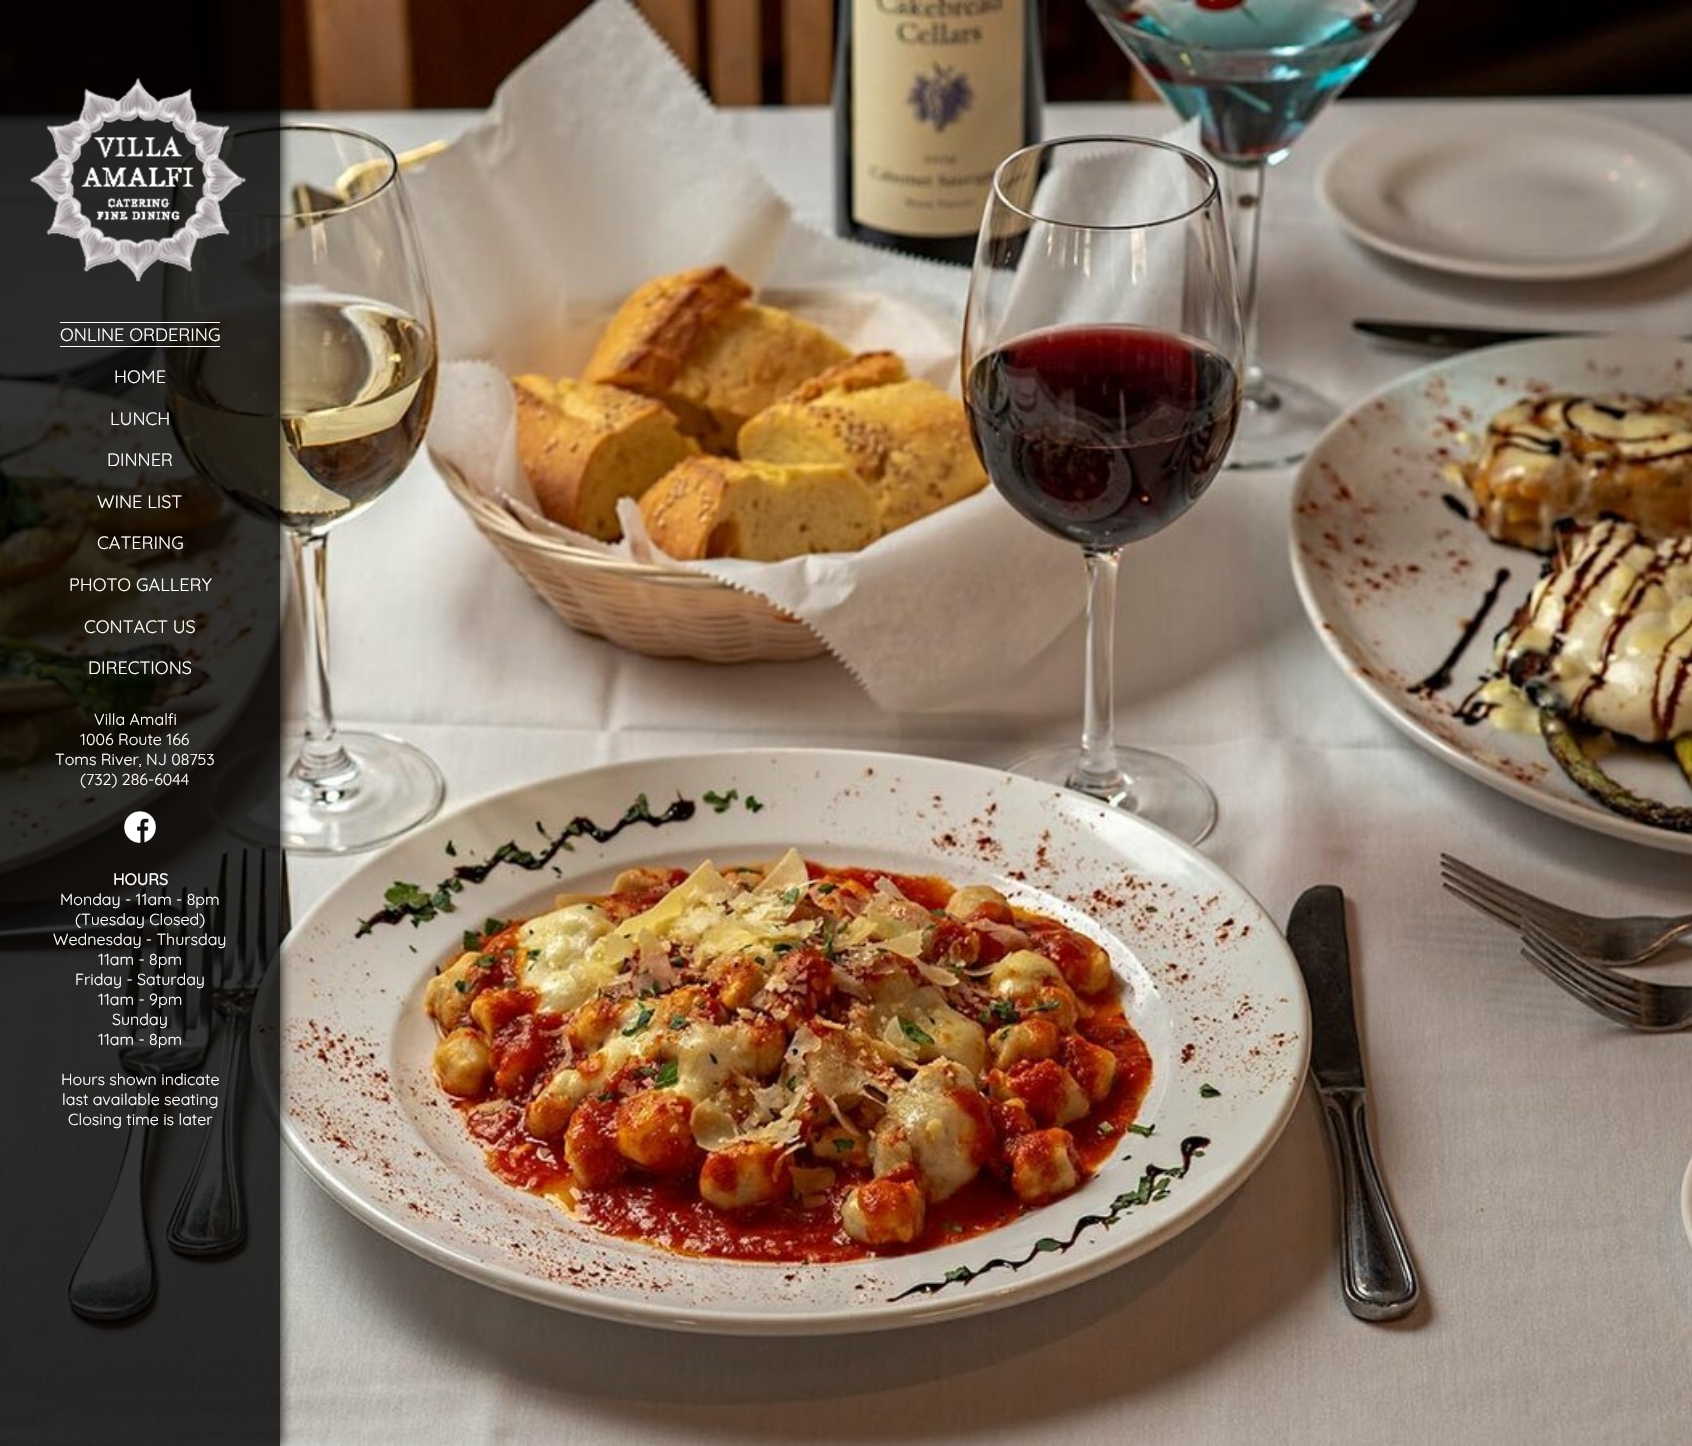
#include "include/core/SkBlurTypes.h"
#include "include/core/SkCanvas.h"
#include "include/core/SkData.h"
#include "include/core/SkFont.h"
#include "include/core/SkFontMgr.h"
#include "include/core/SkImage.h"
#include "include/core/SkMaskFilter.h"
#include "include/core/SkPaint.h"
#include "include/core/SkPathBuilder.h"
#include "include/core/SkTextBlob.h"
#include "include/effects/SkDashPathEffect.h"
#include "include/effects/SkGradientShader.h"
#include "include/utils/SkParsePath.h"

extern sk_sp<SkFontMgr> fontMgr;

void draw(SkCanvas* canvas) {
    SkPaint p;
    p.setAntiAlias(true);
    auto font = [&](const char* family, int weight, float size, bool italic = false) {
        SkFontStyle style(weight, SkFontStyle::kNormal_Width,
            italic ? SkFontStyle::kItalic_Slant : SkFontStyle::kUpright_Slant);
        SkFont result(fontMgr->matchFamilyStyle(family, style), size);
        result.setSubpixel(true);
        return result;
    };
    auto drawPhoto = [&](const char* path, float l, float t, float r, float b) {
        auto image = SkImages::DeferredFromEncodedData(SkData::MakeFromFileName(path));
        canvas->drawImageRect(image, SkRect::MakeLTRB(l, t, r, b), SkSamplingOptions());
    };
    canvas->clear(0xFFFFFFFF);
    drawPhoto("media/1.png", 0, 0, 1692, 1446);
    canvas->save();
    canvas->clipRect(SkRect::MakeLTRB(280, 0, 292, 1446));
    p.setColor(0xFF000000);
    p.setMaskFilter(SkMaskFilter::MakeBlur(kNormal_SkBlurStyle, 6));
    canvas->drawRect(SkRect::MakeLTRB(0, 0, 280, 1446), p);
    p.setMaskFilter(nullptr);
    canvas->restore();
    p.setColor(0xCC000000);
    canvas->drawRect(SkRect::MakeLTRB(0, 0, 280, 1446), p);
    drawPhoto("media/2.png", 30, 77, 247, 282);
    auto font1 = font("Quicksand", 300, 18);
    p.setColor(0xFFFFFFFF);
    canvas->drawString("ONLINE ORDERING", 60, 341, font1, p);
    canvas->drawRect(SkRect::MakeLTRB(60, 322, 220, 323), p);
    canvas->drawRect(SkRect::MakeLTRB(60, 346, 220, 347), p);
    {
        const struct { const char* s; float x, y; } items[] = {
            {"HOME", 114, 383},
            {"LUNCH", 110, 425},
            {"DINNER", 107, 466},
            {"WINE LIST", 97, 508},
            {"CATERING", 97, 549},
            {"PHOTO GALLERY", 69, 591},
            {"CONTACT US", 84, 633},
            {"DIRECTIONS", 88, 674},
        };
        for (auto [s, x, y] : items) {
            canvas->drawString(s, x, y, font1, p);
        }
    }
    auto font2 = font("Quicksand", 300, 16);
    {
        const struct { const char* s; float x, y; } items[] = {
            {"Villa Amalfi", 94, 725},
            {"1006 Route 166", 80, 745},
            {"Toms River, NJ 08753", 55, 765},
            {"(732) 286-6044", 80, 785},
        };
        for (auto [s, x, y] : items) {
            canvas->drawString(s, x, y, font2, p);
        }
    }
    drawPhoto("media/3.png", 124, 811, 156, 843);
    auto font3 = font("Quicksand", 700, 16);
    canvas->drawString("HOURS", 113, 885, font3, p);
    {
        const struct { const char* s; float x, y; } items[] = {
            {"Monday - 11am - 8pm", 60, 905},
            {"(Tuesday Closed)", 75, 925},
            {"Wednesday - Thursday", 53, 945},
            {"11am - 8pm", 98, 965},
            {"Friday - Saturday", 75, 985},
            {"11am - 9pm", 98, 1005},
            {"Sunday", 112, 1025},
            {"11am - 8pm", 98, 1045},
            {"Hours shown indicate", 61, 1085},
            {"last available seating", 62, 1105},
            {"Closing time is later", 68, 1125},
        };
        for (auto [s, x, y] : items) {
            canvas->drawString(s, x, y, font2, p);
        }
    }
}
